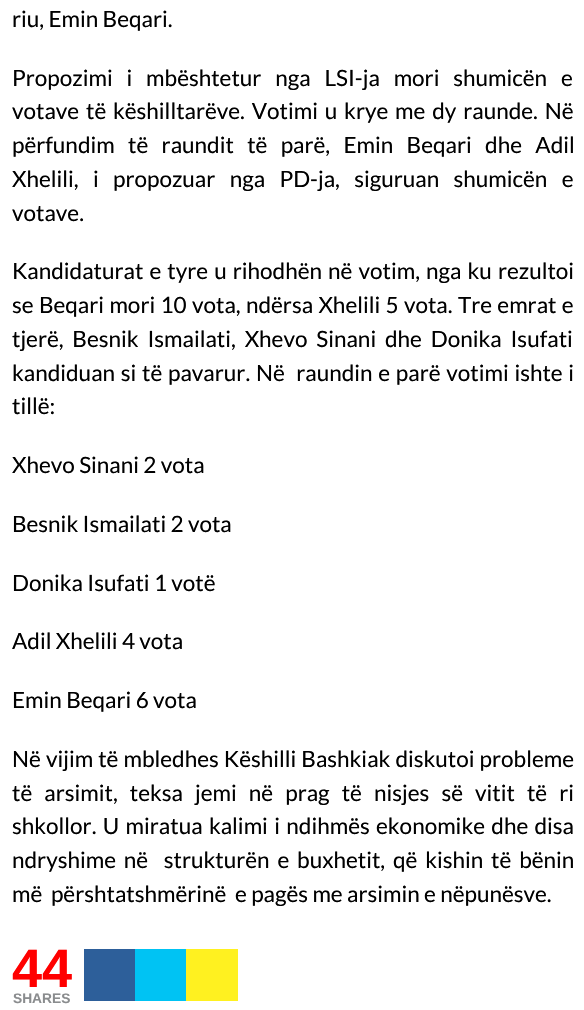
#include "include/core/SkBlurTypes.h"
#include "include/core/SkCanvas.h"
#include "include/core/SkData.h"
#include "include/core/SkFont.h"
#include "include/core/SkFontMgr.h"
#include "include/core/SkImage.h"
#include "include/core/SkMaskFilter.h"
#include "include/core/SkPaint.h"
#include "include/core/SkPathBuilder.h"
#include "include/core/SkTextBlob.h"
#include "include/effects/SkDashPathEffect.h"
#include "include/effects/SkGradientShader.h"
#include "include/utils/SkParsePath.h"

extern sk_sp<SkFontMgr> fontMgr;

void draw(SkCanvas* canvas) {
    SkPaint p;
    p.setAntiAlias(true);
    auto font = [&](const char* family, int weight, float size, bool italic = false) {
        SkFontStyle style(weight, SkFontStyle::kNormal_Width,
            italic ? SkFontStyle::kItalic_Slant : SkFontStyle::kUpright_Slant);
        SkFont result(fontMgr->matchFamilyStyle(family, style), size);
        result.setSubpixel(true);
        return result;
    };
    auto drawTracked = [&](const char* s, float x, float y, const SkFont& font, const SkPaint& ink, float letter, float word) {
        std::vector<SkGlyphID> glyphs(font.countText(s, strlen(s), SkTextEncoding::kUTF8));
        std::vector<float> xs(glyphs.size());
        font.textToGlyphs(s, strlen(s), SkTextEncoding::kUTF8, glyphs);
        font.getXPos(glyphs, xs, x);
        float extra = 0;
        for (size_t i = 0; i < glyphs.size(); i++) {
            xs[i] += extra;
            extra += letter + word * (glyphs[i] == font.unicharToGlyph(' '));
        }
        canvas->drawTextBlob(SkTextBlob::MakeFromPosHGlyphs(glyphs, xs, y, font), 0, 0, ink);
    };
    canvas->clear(0xFFFFFFFF);
    auto font1 = font("Lato", 400, 22.5f);
    p.setColor(0xFF000000);
    canvas->drawString("riu, Emin Beqari.", 12, 27, font1, p);
    drawTracked("Propozimi i mbështetur nga LSI-ja mori shumicën e", 12, 86, font1, p, 0, 9.5f);
    drawTracked("votave të këshilltarëve. Votimi u krye me dy raunde. Në", 12, 119, font1, p, 0, 2.5f);
    drawTracked("përfundim të raundit të parë, Emin Beqari dhe Adil", 12, 153, font1, p, 0, 9);
    drawTracked("Xhelili, i propozuar nga PD-ja, siguruan shumicën e", 12, 187, font1, p, 0, 10);
    canvas->drawString("votave.", 12, 221, font1, p);
    drawTracked("Kandidaturat e tyre u rihodhën në votim, nga ku rezultoi", 12, 279, font1, p, 0, 1.75f);
    drawTracked("se Beqari mori 10 vota, ndërsa Xhelili 5 vota. Tre emrat e", 12, 313, font1, p, 0, 1);
    drawTracked("tjerë, Besnik Ismailati, Xhevo Sinani dhe Donika Isufati", 12, 347, font1, p, 0, 4.5f);
    drawTracked("kandiduan si të pavarur. Në  raundin e parë votimi ishte i", 12, 381, font1, p, 0, 1.4f);
    {
        const struct { const char* s; float x, y; } items[] = {
            {"tillë:", 12, 414},
            {"Xhevo Sinani 2 vota", 12, 473},
            {"Besnik Ismailati 2 vota", 12, 532},
            {"Donika Isufati 1 votë", 12, 591},
            {"Adil Xhelili 4 vota", 12, 649},
            {"Emin Beqari 6 vota", 12, 708},
        };
        for (auto [s, x, y] : items) {
            canvas->drawString(s, x, y, font1, p);
        }
    }
    drawTracked("Në vijim të mbledhes Këshilli Bashkiak diskutoi probleme", 12, 767, font1, p, 0, 0.75f);
    drawTracked("të arsimit, teksa jemi në prag të nisjes së vitit të ri", 12, 801, font1, p, 0, 7.75f);
    drawTracked("shkollor. U miratua kalimi i ndihmës ekonomike dhe disa", 12, 834, font1, p, 0, 2);
    drawTracked("ndryshime në  strukturën e buxhetit, që kishin të bënin", 12, 868, font1, p, 0, 3.5f);
    canvas->drawString("më  përshtatshmërinë  e pagës me arsimin e nëpunësve.", 12, 902, font1, p);
    auto font2 = font("Liberation Sans", 700, 54);
    p.setColor(0xFFFF0000);
    canvas->drawString("44", 12, 987, font2, p);
    auto font3 = font("Liberation Sans", 700, 13.75f);
    p.setColor(0xFF8A8C8E);
    canvas->drawString("SHARES", 13, 1003, font3, p);
    {
        const struct { float l, t, r, b; SkColor color; } items[] = {
            {84, 949, 135, 1001, 0xFF2D5F9A},
            {135, 949, 186, 1001, 0xFF00C3F3},
            {186, 949, 238, 1001, 0xFFFFF120},
        };
        for (auto [l, t, r, b, color] : items) {
            p.setColor(color);
            canvas->drawRect(SkRect::MakeLTRB(l, t, r, b), p);
        }
    }
}
